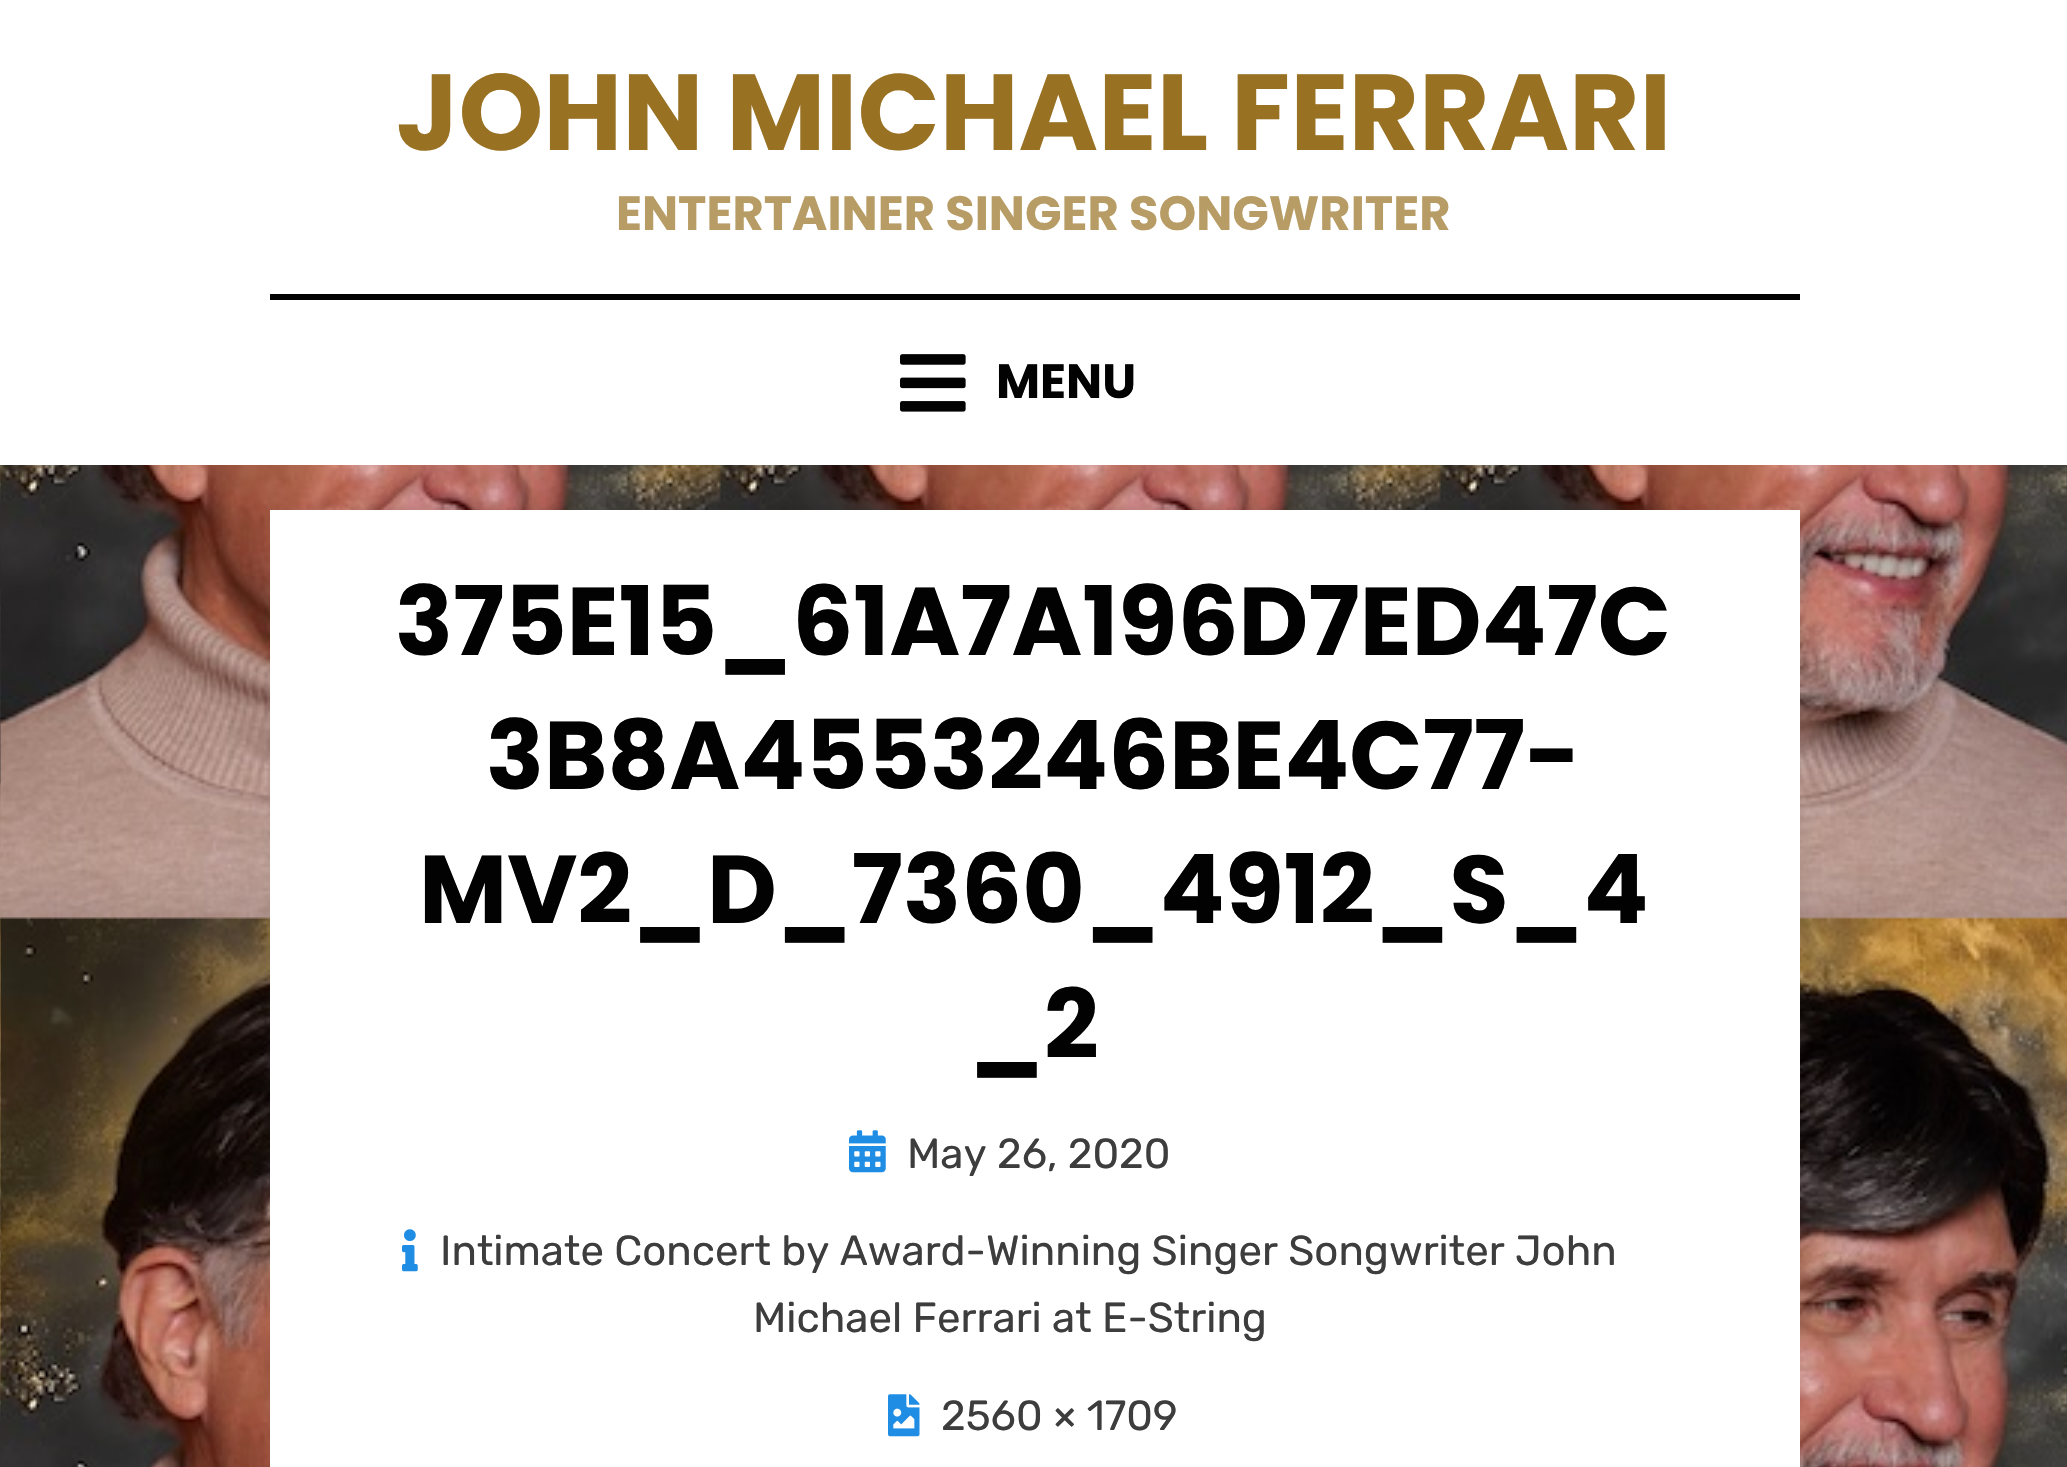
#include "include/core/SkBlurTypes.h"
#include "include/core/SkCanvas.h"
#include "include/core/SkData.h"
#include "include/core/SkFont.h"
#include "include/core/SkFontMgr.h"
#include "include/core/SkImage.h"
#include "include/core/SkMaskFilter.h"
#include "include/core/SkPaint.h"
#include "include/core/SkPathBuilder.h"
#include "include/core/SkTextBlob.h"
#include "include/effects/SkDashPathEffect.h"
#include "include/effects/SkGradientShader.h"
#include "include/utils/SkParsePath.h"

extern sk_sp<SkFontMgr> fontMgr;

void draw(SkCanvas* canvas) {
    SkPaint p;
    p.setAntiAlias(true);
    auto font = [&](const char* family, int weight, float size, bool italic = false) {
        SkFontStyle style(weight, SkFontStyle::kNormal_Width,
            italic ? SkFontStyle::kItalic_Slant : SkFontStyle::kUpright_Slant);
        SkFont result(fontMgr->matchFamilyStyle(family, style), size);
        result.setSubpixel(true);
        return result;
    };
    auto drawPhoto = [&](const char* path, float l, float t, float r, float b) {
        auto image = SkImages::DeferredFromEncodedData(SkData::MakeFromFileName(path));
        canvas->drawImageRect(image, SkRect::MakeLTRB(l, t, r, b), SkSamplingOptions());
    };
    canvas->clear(0xFFFFFFFF);
    drawPhoto("media/1.png", 0, 465, 2067, 1467);
    auto font1 = font("Poppins", 700, 108);
    p.setColor(0xFF997123);
    canvas->drawString("JOHN MICHAEL FERRARI", 396, 150, font1, p);
    auto font2 = font("Poppins", 700, 48);
    p.setColor(0xFFB89C65);
    canvas->drawString("ENTERTAINER SINGER SONGWRITER", 616, 230, font2, p);
    p.setColor(0xFF020202);
    canvas->drawRect(SkRect::MakeLTRB(270, 294, 1800, 300), p);
    drawPhoto("media/2.png", 900, 354, 966, 412);
    canvas->drawString("MENU", 996, 398, font2, p);
    p.setColor(0x0D000001);
    p.setMaskFilter(SkMaskFilter::MakeBlur(kNormal_SkBlurStyle, 7.5f));
    canvas->drawRect(SkRect::MakeLTRB(270, 513, 1800, 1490), p);
    p.setMaskFilter(nullptr);
    p.setColor(0xFFFFFFFF);
    canvas->drawRect(SkRect::MakeLTRB(270, 510, 1800, 1467), p);
    auto font3 = font("Poppins", 700, 96);
    p.setColor(0xFF020202);
    {
        const struct { const char* s; float x, y; } items[] = {
            {"375E15_61A7A196D7ED47C", 395, 655},
            {"3B8A4553246BE4C77-", 486, 789},
            {"MV2_D_7360_4912_S_4", 419, 923},
            {"_2", 969, 1058},
        };
        for (auto [s, x, y] : items) {
            canvas->drawString(s, x, y, font3, p);
        }
    }
    drawPhoto("media/3.png", 849, 1130, 886, 1173);
    auto font4 = font("Rubik", 400, 42);
    p.setColor(0xFF3D3D3D);
    canvas->drawString("May 26, 2020", 907, 1168, font4, p);
    drawPhoto("media/4.png", 402, 1229, 418, 1272);
    canvas->drawString("Intimate Concert by Award-Winning Singer Songwriter John", 440, 1265, font4, p);
    canvas->drawString("Michael Ferrari at E-String", 753, 1332, font4, p);
    drawPhoto("media/5.png", 888, 1394, 920, 1437);
    canvas->drawString("2560 × 1709", 941, 1430, font4, p);
}
